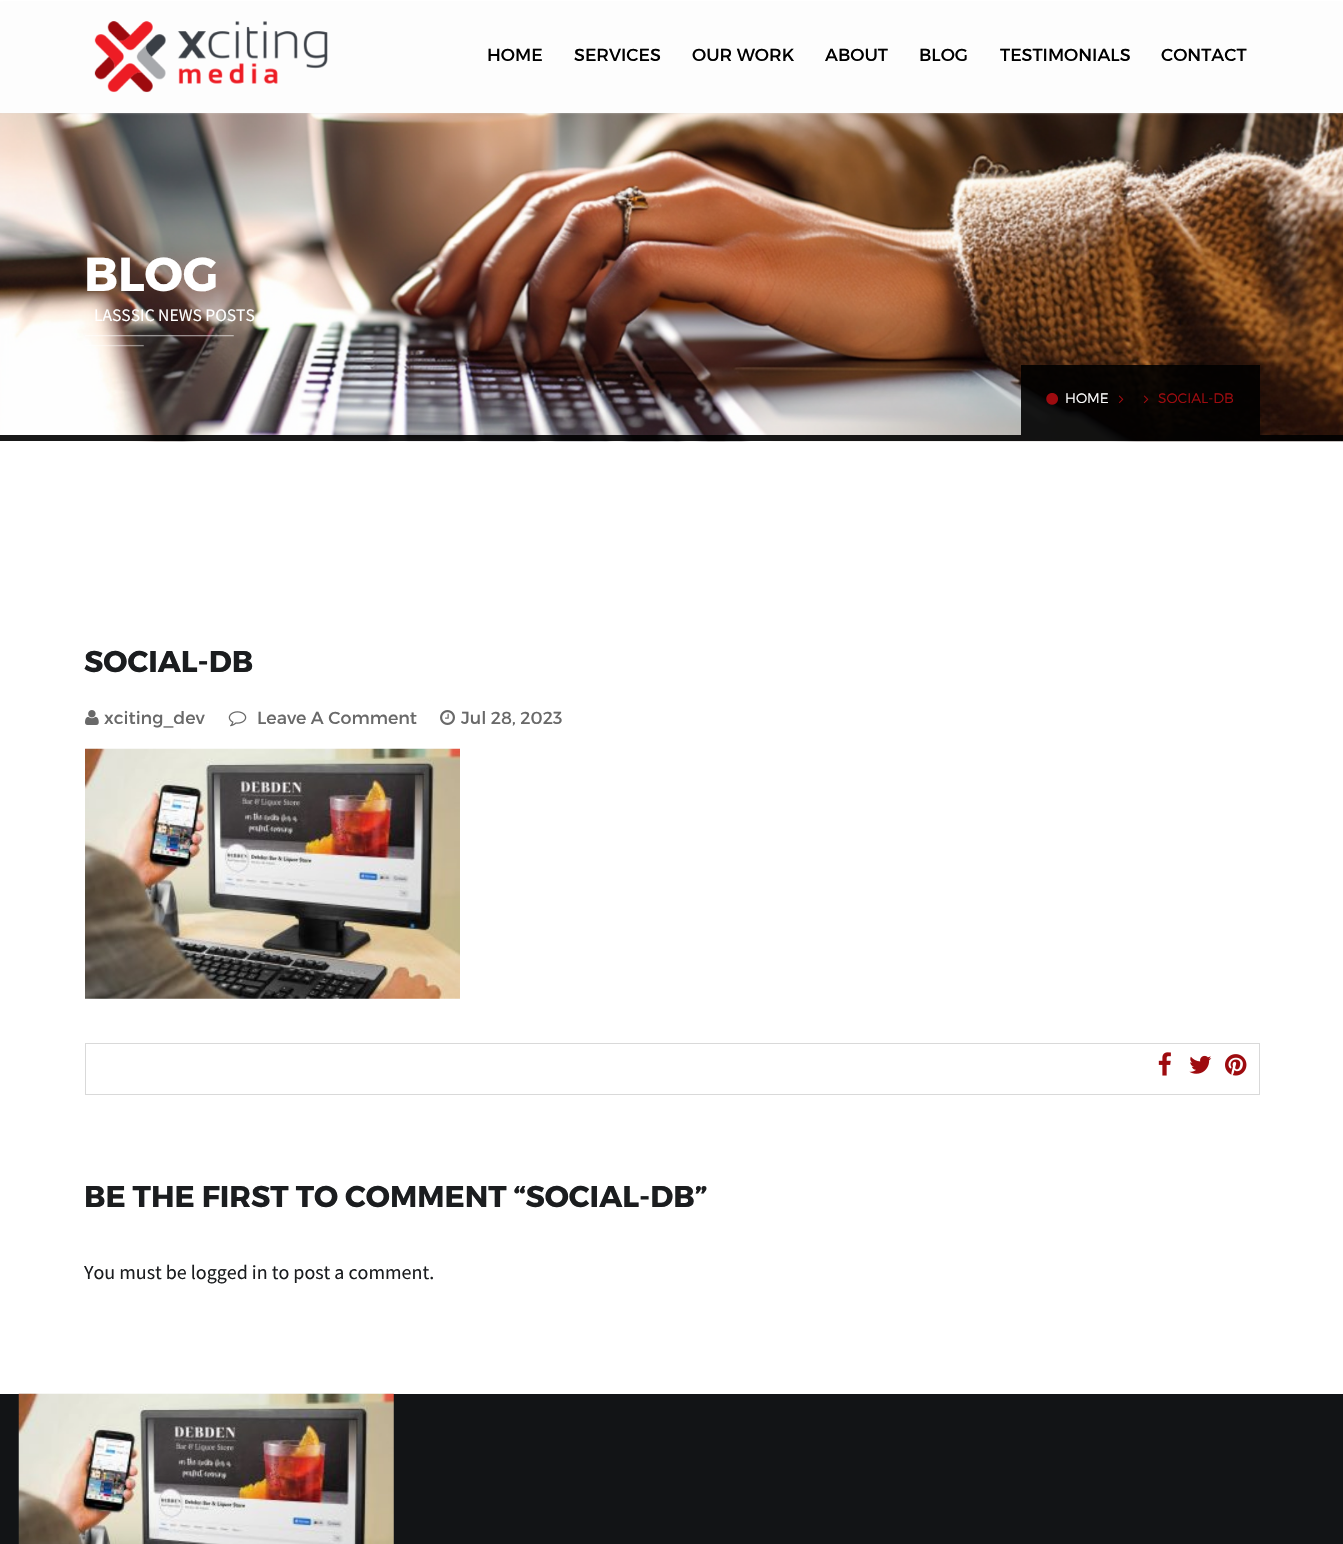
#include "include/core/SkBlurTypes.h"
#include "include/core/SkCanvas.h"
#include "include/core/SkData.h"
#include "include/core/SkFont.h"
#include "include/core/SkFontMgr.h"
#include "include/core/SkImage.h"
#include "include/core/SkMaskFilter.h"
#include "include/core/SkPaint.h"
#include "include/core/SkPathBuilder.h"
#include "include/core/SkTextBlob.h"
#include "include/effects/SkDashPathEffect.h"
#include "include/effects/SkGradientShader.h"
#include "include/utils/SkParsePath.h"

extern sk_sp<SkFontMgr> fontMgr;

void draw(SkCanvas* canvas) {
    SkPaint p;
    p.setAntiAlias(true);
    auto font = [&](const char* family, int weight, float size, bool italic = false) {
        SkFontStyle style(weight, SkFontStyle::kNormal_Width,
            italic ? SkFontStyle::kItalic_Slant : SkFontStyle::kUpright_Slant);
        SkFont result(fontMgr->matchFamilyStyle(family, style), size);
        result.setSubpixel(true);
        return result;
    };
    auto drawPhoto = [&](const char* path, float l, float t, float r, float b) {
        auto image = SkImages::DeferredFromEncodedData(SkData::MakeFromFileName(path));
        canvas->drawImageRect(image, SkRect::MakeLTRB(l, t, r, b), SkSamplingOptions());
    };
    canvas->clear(0xFFFFFFFF);
    drawPhoto("media/2.png", 0, 113, 1343, 442);
    p.setColor(0x94DADADA);
    p.setMaskFilter(SkMaskFilter::MakeBlur(kNormal_SkBlurStyle, 1));
    canvas->drawRect(SkRect::MakeLTRB(1, 3, 1343, 113), p);
    p.setMaskFilter(nullptr);
    p.setColor(0xFFFDFDFD);
    canvas->drawRect(SkRect::MakeLTRB(0, 2, 1343, 113), p);
    drawPhoto("media/1.png", 94, 21, 328, 93);
    auto font1 = font("Montserrat", 400, 17.5f);
    p.setColor(0xFF000000);
    {
        const struct { const char* s; float x, y; } items[] = {
            {"HOME", 487, 61},
            {"SERVICES", 574, 61},
            {"OUR WORK", 692, 61},
            {"ABOUT", 825, 61},
            {"BLOG", 919, 61},
            {"TESTIMONIALS", 1000, 61},
            {"CONTACT", 1161, 61},
        };
        for (auto [s, x, y] : items) {
            canvas->drawString(s, x, y, font1, p);
        }
    }
    p.setColor(0xE6000000);
    canvas->drawRect(SkRect::MakeLTRB(0, 435, 1343, 441), p);
    auto font2 = font("Montserrat", 700, 47.5f);
    p.setColor(0xFFFFFFFF);
    canvas->drawString("BLOG", 84, 291, font2, p);
    auto font3 = font("Source Sans Pro", 400, 17.5f);
    canvas->drawString("LASSSIC NEWS POSTS", 94, 321, font3, p);
    drawPhoto("media/3.png", 85, 335, 234, 347);
    p.setColor(0xE6000000);
    canvas->drawRect(SkRect::MakeLTRB(1021, 365, 1260, 435), p);
    drawPhoto("media/4.png", 1046, 393, 1058, 405);
    auto font4 = font("Montserrat", 300, 13.75f);
    p.setColor(0xFFFFFFFF);
    canvas->drawString("HOME", 1065, 403, font4, p);
    drawPhoto("media/5.png", 1118, 395, 1124, 404);
    drawPhoto("media/6.png", 1143, 395, 1149, 404);
    p.setColor(0xFF9E0B0F);
    canvas->drawString("SOCIAL-DB", 1158, 403, font4, p);
    auto font5 = font("Montserrat", 700, 30);
    p.setColor(0xFF1B1D1F);
    canvas->drawString("SOCIAL-DB", 84, 672, font5, p);
    drawPhoto("media/7.png", 85, 710, 99, 725);
    p.setColor(0xFF696969);
    canvas->drawString("xciting_dev", 104, 724, font1, p);
    drawPhoto("media/8.png", 228, 711, 247, 727);
    canvas->drawString("Leave A Comment", 257, 724, font1, p);
    drawPhoto("media/9.png", 440, 710, 455, 725);
    canvas->drawString("Jul 28, 2023", 461, 724, font1, p);
    drawPhoto("media/10.png", 85, 748, 460, 999);
    p.setStyle(SkPaint::kStroke_Style);
    p.setStrokeWidth(1);
    p.setColor(0xFFD9D9D9);
    canvas->drawRect(SkRect::MakeLTRB(85.5f, 1043.5f, 1259.5f, 1094.5f), p);
    drawPhoto("media/11.png", 1158, 1052, 1171, 1076);
    drawPhoto("media/12.png", 1189, 1055, 1212, 1074);
    drawPhoto("media/13.png", 1225, 1054, 1247, 1076);
    p.setStyle(SkPaint::kFill_Style);
    p.setColor(0xFF1B1D1F);
    canvas->drawString("BE THE FIRST TO COMMENT “SOCIAL-DB”", 84, 1207, font5, p);
    auto font6 = font("Source Sans Pro", 400, 20);
    canvas->drawString("You must be logged in to post a comment.", 84, 1279, font6, p);
    p.setColor(0xFF121416);
    canvas->drawRect(SkRect::MakeLTRB(0, 1394, 1343, 1544), p);
    drawPhoto("media/14.png", 18, 1393, 394, 1544);
}
